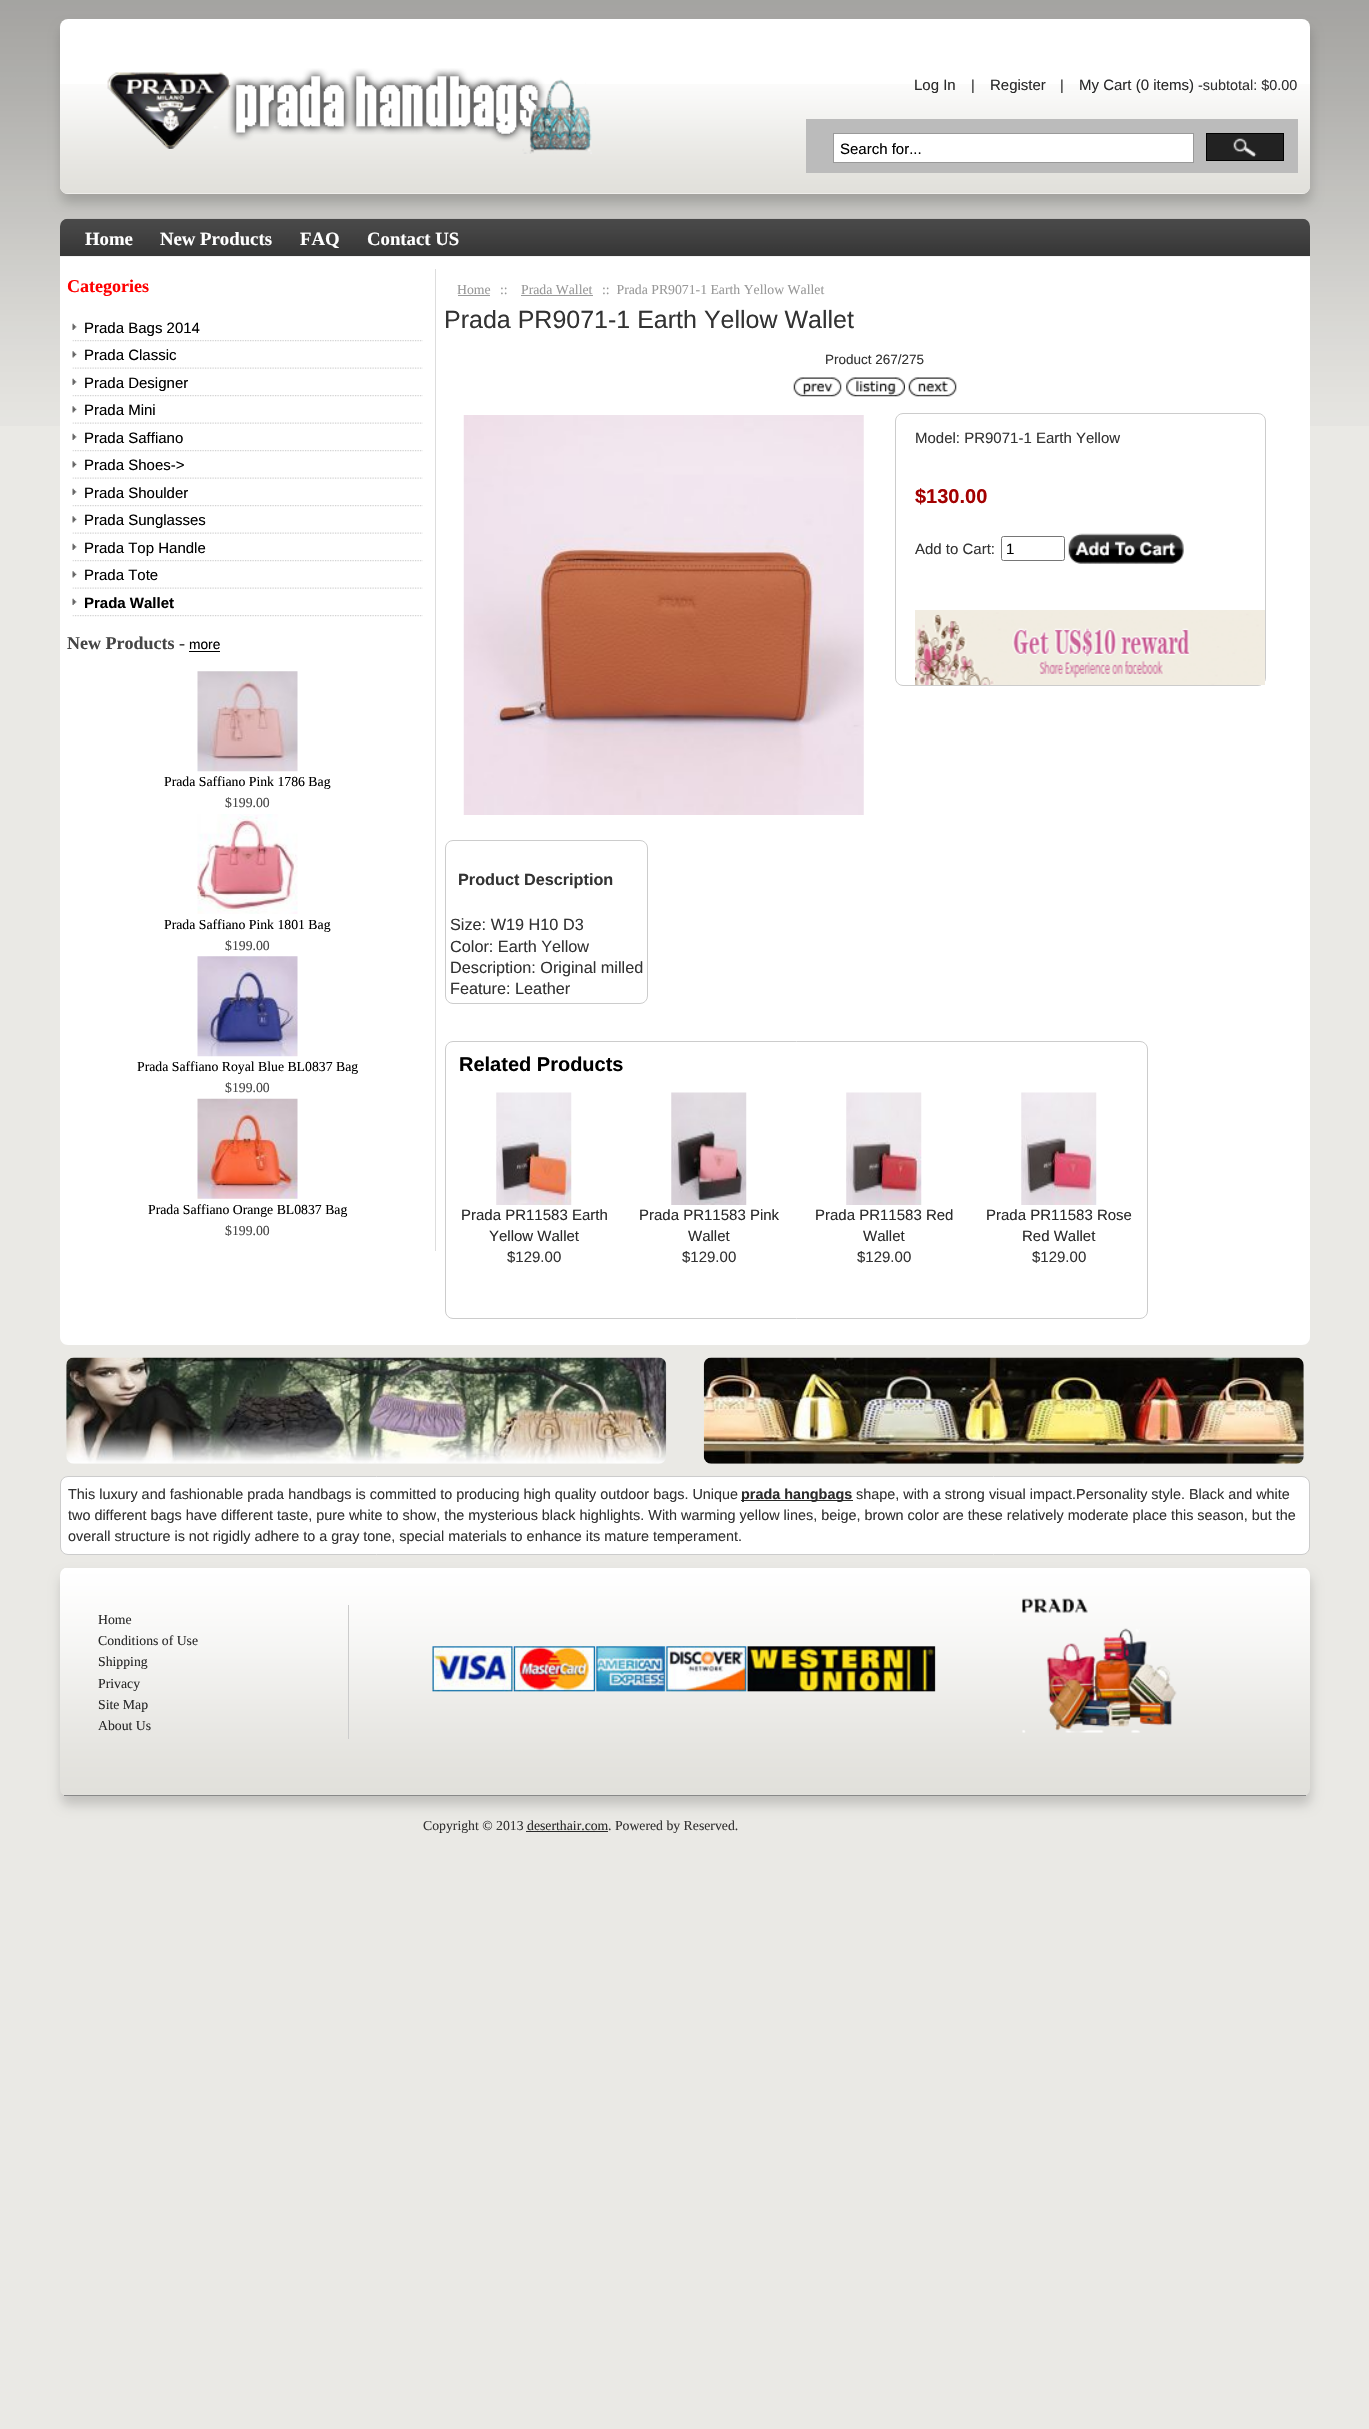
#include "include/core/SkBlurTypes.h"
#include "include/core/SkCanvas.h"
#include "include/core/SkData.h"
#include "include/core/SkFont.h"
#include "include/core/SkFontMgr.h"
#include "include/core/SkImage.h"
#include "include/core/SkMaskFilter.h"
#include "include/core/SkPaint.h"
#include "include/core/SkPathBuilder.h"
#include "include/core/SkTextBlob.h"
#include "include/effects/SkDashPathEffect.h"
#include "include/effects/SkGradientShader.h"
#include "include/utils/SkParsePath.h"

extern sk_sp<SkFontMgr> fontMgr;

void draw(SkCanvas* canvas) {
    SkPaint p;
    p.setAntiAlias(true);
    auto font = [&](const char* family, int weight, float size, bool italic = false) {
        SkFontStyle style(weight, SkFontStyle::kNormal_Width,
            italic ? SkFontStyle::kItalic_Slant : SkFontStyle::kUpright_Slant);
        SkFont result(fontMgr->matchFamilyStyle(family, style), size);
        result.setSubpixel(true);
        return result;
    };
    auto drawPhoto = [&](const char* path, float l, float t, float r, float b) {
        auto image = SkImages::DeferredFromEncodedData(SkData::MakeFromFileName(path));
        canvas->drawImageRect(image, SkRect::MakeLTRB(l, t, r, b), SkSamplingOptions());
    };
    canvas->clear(0xFFEAE9E5);
    drawPhoto("media/1.png", 0, 0, 1369, 426);
    p.setColor(0x2B000000);
    p.setMaskFilter(SkMaskFilter::MakeBlur(kNormal_SkBlurStyle, 6));
    canvas->drawRoundRect(SkRect::MakeLTRB(61, 28, 1311, 203), 8, 8, p);
    p.setMaskFilter(nullptr);
    p.setColor(0xFFFFFFFF);
    canvas->drawRoundRect(SkRect::MakeLTRB(60, 19, 1310, 194), 8, 8, p);
    drawPhoto("media/2.png", 60, 84, 1310, 194);
    drawPhoto("media/3.png", 107, 68, 592, 154);
    auto font1 = font("Liberation Sans", 400, 15);
    p.setColor(0xFF2B2B2B);
    canvas->drawString("Log In", 914, 90, font1, p);
    auto font2 = font("Liberation Sans", 400, 14.4f);
    p.setColor(0xFF333333);
    canvas->drawString("|", 971, 90, font2, p);
    p.setColor(0xFF2B2B2B);
    canvas->drawString("Register", 990, 90, font1, p);
    p.setColor(0xFF333333);
    canvas->drawString("|", 1060, 90, font2, p);
    p.setColor(0xFF2B2B2B);
    canvas->drawString("My Cart (0 items)", 1079, 90, font1, p);
    p.setColor(0xFF333333);
    canvas->drawString("-subtotal: $0.00", 1198, 90, font2, p);
    p.setColor(0xFFBBBBBB);
    canvas->drawRect(SkRect::MakeLTRB(806, 119, 1298, 173), p);
    p.setColor(0xFFFFFFFF);
    canvas->drawRect(SkRect::MakeLTRB(833.5f, 133.5f, 1193.5f, 162.5f), p);
    p.setStyle(SkPaint::kStroke_Style);
    p.setStrokeWidth(1);
    p.setColor(0xFF999999);
    canvas->drawRect(SkRect::MakeLTRB(833.5f, 133.5f, 1193.5f, 162.5f), p);
    p.setStyle(SkPaint::kFill_Style);
    p.setColor(0xFF000000);
    canvas->drawString("Search for...", 840, 154, font1, p);
    p.setColor(0xFF222222);
    canvas->drawRect(SkRect::MakeLTRB(1206.5f, 133.5f, 1283.5f, 160.5f), p);
    p.setStyle(SkPaint::kStroke_Style);
    p.setColor(0xFF000000);
    canvas->drawRect(SkRect::MakeLTRB(1206.5f, 133.5f, 1283.5f, 160.5f), p);
    drawPhoto("media/4.png", 1233, 138, 1257, 157);
    p.setStyle(SkPaint::kFill_Style);
    p.setColor(0xFFFFFFFF);
    canvas->drawPath(SkPathBuilder().moveTo(60, 256).lineTo(1310, 256).lineTo(1310, 1337).cubicTo(1310, 1341.5f, 1306.5f, 1345, 1302, 1345).lineTo(68, 1345).cubicTo(63.5f, 1345, 60, 1341.5f, 60, 1337).close().detach(), p);
    drawPhoto("media/5.png", 60, 218, 1310, 257);
    auto font3 = font("Liberation Serif", 700, 18.75f);
    {
        const struct { const char* s; float x, y; } items[] = {
            {"Home", 85, 245},
            {"New Products", 160, 245},
            {"FAQ", 300, 245},
            {"Contact US", 367, 245},
        };
        for (auto [s, x, y] : items) {
            canvas->drawString(s, x, y, font3, p);
        }
    }
    p.setColor(0xFFDDDDDD);
    canvas->drawRect(SkRect::MakeLTRB(435, 269, 436, 1251), p);
    auto font4 = font("Liberation Serif", 700, 18);
    p.setColor(0xFFFF0000);
    canvas->drawString("Categories", 67, 292, font4, p);
    drawPhoto("media/6.png", 72, 340, 423, 342);
    drawPhoto("media/7.png", 72, 323, 77, 330);
    p.setColor(0xFF000000);
    canvas->drawString("Prada Bags 2014", 84, 333, font1, p);
    drawPhoto("media/8.png", 72, 367, 423, 369);
    drawPhoto("media/9.png", 72, 351, 77, 358);
    canvas->drawString("Prada Classic", 84, 360, font1, p);
    drawPhoto("media/6.png", 72, 395, 423, 397);
    drawPhoto("media/7.png", 72, 378, 77, 385);
    canvas->drawString("Prada Designer", 84, 388, font1, p);
    drawPhoto("media/8.png", 72, 422, 423, 424);
    drawPhoto("media/9.png", 72, 406, 77, 413);
    canvas->drawString("Prada Mini", 84, 415, font1, p);
    drawPhoto("media/6.png", 72, 450, 423, 452);
    drawPhoto("media/7.png", 72, 433, 77, 440);
    canvas->drawString("Prada Saffiano", 84, 443, font1, p);
    drawPhoto("media/8.png", 72, 477, 423, 479);
    drawPhoto("media/9.png", 72, 461, 77, 468);
    canvas->drawString("Prada Shoes->", 84, 470, font1, p);
    drawPhoto("media/6.png", 72, 505, 423, 507);
    drawPhoto("media/7.png", 72, 488, 77, 495);
    canvas->drawString("Prada Shoulder", 84, 498, font1, p);
    drawPhoto("media/8.png", 72, 532, 423, 534);
    drawPhoto("media/9.png", 72, 516, 77, 523);
    canvas->drawString("Prada Sunglasses", 84, 525, font1, p);
    drawPhoto("media/6.png", 72, 560, 423, 562);
    drawPhoto("media/7.png", 72, 543, 77, 550);
    canvas->drawString("Prada Top Handle", 84, 553, font1, p);
    drawPhoto("media/8.png", 72, 587, 423, 589);
    drawPhoto("media/9.png", 72, 571, 77, 578);
    canvas->drawString("Prada Tote", 84, 580, font1, p);
    drawPhoto("media/6.png", 72, 615, 423, 617);
    drawPhoto("media/7.png", 72, 598, 77, 605);
    auto font5 = font("Liberation Sans", 700, 15);
    canvas->drawString("Prada Wallet", 84, 608, font5, p);
    p.setColor(0xFF454545);
    canvas->drawString("New Products -", 67, 649, font4, p);
    auto font6 = font("Liberation Sans", 400, 13.75f);
    p.setColor(0xFF000000);
    canvas->drawString("more", 189, 649, font6, p);
    canvas->drawRect(SkRect::MakeLTRB(189, 651, 220, 652), p);
    drawPhoto("media/10.png", 197, 671, 298, 772);
    auto font7 = font("Liberation Serif", 400, 13.75f);
    canvas->drawString("Prada Saffiano Pink 1786 Bag", 164, 786, font7, p);
    p.setColor(0xFF454545);
    canvas->drawString("$199.00", 225, 807, font7, p);
    drawPhoto("media/11.png", 197, 814, 298, 914);
    p.setColor(0xFF000000);
    canvas->drawString("Prada Saffiano Pink 1801 Bag", 164, 929, font7, p);
    p.setColor(0xFF454545);
    canvas->drawString("$199.00", 225, 950, font7, p);
    drawPhoto("media/12.png", 197, 956, 298, 1057);
    p.setColor(0xFF000000);
    canvas->drawString("Prada Saffiano Royal Blue BL0837 Bag", 137, 1071, font7, p);
    p.setColor(0xFF454545);
    canvas->drawString("$199.00", 225, 1092, font7, p);
    drawPhoto("media/13.png", 197, 1098, 298, 1199);
    p.setColor(0xFF000000);
    canvas->drawString("Prada Saffiano Orange BL0837 Bag", 148, 1214, font7, p);
    p.setColor(0xFF454545);
    canvas->drawString("$199.00", 225, 1235, font7, p);
    p.setColor(0xFF999999);
    canvas->drawString("Home", 457, 294, font7, p);
    canvas->drawRect(SkRect::MakeLTRB(458, 295, 490, 296), p);
    canvas->drawString("::", 500, 294, font7, p);
    canvas->drawString("Prada Wallet", 521, 294, font7, p);
    canvas->drawRect(SkRect::MakeLTRB(521, 295, 593, 296), p);
    canvas->drawString("::  Prada PR9071-1 Earth Yellow Wallet", 602, 294, font7, p);
    auto font8 = font("Liberation Sans", 400, 25);
    p.setColor(0xFF333333);
    canvas->drawString("Prada PR9071-1 Earth Yellow Wallet", 444, 328, font8, p);
    auto font9 = font("Liberation Sans", 400, 13.5f);
    canvas->drawString("Product 267/275", 825, 364, font9, p);
    drawPhoto("media/14.png", 793, 377, 842, 397);
    drawPhoto("media/15.png", 846, 377, 905, 397);
    drawPhoto("media/16.png", 908, 377, 957, 397);
    drawPhoto("media/17.png", 463, 415, 864, 815);
    p.setStyle(SkPaint::kStroke_Style);
    p.setColor(0xFFCCCCCC);
    canvas->drawRoundRect(SkRect::MakeLTRB(895.5f, 413.5f, 1265.5f, 685.5f), 7.5f, 7.5f, p);
    p.setStyle(SkPaint::kFill_Style);
    p.setColor(0xFF333333);
    canvas->drawString("Model: PR9071-1 Earth Yellow", 915, 443, font1, p);
    auto font10 = font("Liberation Sans", 700, 20);
    p.setColor(0xFFA30101);
    canvas->drawString("$130.00", 915, 503, font10, p);
    p.setColor(0xFF333333);
    canvas->drawString("Add to Cart:", 915, 554, font1, p);
    p.setStyle(SkPaint::kStroke_Style);
    p.setColor(0xFF767676);
    canvas->drawRoundRect(SkRect::MakeLTRB(1001.5f, 536.5f, 1064.5f, 560.5f), 2, 2, p);
    p.setStyle(SkPaint::kFill_Style);
    p.setColor(0xFF000000);
    canvas->drawString("1", 1006, 554, font1, p);
    drawPhoto("media/18.png", 1068, 533, 1184, 564);
    drawPhoto("media/19.png", 915, 610, 1265, 685);
    p.setStyle(SkPaint::kStroke_Style);
    p.setColor(0xFFCCCCCC);
    canvas->drawRoundRect(SkRect::MakeLTRB(445.5f, 840.5f, 647.5f, 1003.5f), 7.5f, 7.5f, p);
    auto font11 = font("Liberation Sans", 700, 16.25f);
    p.setStyle(SkPaint::kFill_Style);
    p.setColor(0xFF333333);
    canvas->drawString("Product Description", 458, 885, font11, p);
    auto font12 = font("Liberation Sans", 400, 16.25f);
    {
        const struct { const char* s; float x, y; } items[] = {
            {"Size: W19 H10 D3", 450, 930},
            {"Color: Earth Yellow", 450, 952},
            {"Description: Original milled", 450, 973},
            {"Feature: Leather", 450, 994},
        };
        for (auto [s, x, y] : items) {
            canvas->drawString(s, x, y, font12, p);
        }
    }
    p.setStyle(SkPaint::kStroke_Style);
    p.setColor(0xFFCCCCCC);
    canvas->drawRoundRect(SkRect::MakeLTRB(445.5f, 1041.5f, 1147.5f, 1318.5f), 7.5f, 7.5f, p);
    p.setStyle(SkPaint::kFill_Style);
    p.setColor(0xFF000000);
    canvas->drawString("Related Products", 459, 1071, font10, p);
    drawPhoto("media/20.png", 496, 1092, 572, 1205);
    p.setColor(0xFF2B2B2B);
    canvas->drawString("Prada PR11583 Earth", 461, 1220, font1, p);
    canvas->drawString("Yellow Wallet", 489, 1241, font1, p);
    p.setColor(0xFF333333);
    canvas->drawString("$129.00", 507, 1262, font1, p);
    drawPhoto("media/21.png", 671, 1092, 747, 1205);
    p.setColor(0xFF2B2B2B);
    canvas->drawString("Prada PR11583 Pink", 639, 1220, font1, p);
    canvas->drawString("Wallet", 688, 1241, font1, p);
    p.setColor(0xFF333333);
    canvas->drawString("$129.00", 682, 1262, font1, p);
    drawPhoto("media/22.png", 846, 1092, 922, 1205);
    p.setColor(0xFF2B2B2B);
    canvas->drawString("Prada PR11583 Red", 815, 1220, font1, p);
    canvas->drawString("Wallet", 863, 1241, font1, p);
    p.setColor(0xFF333333);
    canvas->drawString("$129.00", 857, 1262, font1, p);
    drawPhoto("media/23.png", 1021, 1092, 1097, 1205);
    p.setColor(0xFF2B2B2B);
    canvas->drawString("Prada PR11583 Rose", 986, 1220, font1, p);
    canvas->drawString("Red Wallet", 1022, 1241, font1, p);
    p.setColor(0xFF333333);
    canvas->drawString("$129.00", 1032, 1262, font1, p);
    drawPhoto("media/24.png", 66, 1357, 667, 1464);
    drawPhoto("media/25.png", 703, 1357, 1304, 1464);
    p.setColor(0xFFFFFFFF);
    canvas->drawRoundRect(SkRect::MakeLTRB(60.5f, 1476.5f, 1309.5f, 1554.5f), 7.5f, 7.5f, p);
    p.setStyle(SkPaint::kStroke_Style);
    p.setColor(0xFFCCCCCC);
    canvas->drawRoundRect(SkRect::MakeLTRB(60.5f, 1476.5f, 1309.5f, 1554.5f), 7.5f, 7.5f, p);
    p.setStyle(SkPaint::kFill_Style);
    p.setColor(0xFF333333);
    canvas->drawString("This luxury and fashionable prada handbags is committed to producing high quality outdoor bags. Unique", 68, 1499, font2, p);
    p.setColor(0xFF2B2B2B);
    canvas->drawRect(SkRect::MakeLTRB(741, 1500, 853, 1501), p);
    auto font13 = font("Liberation Sans", 700, 14.4f);
    canvas->drawString("prada hangbags", 741, 1499, font13, p);
    p.setColor(0xFF333333);
    {
        const struct { const char* s; float x, y; } items[] = {
            {"shape, with a strong visual impact.Personality style. Black and white", 856, 1499},
            {"two different bags have different taste, pure white to show, the mysterious black highlights. With warming yellow lines, beige, brown color are these relatively moderate place this season, but the", 68, 1520},
            {"overall structure is not rigidly adhere to a gray tone, special materials to enhance its mature temperament.", 68, 1541},
        };
        for (auto [s, x, y] : items) {
            canvas->drawString(s, x, y, font2, p);
        }
    }
    p.setColor(0x2B000000);
    p.setMaskFilter(SkMaskFilter::MakeBlur(kNormal_SkBlurStyle, 6));
    canvas->drawRoundRect(SkRect::MakeLTRB(61, 1576, 1311, 1805), 8, 8, p);
    p.setMaskFilter(nullptr);
    drawPhoto("media/26.png", 60, 1568, 1310, 1796);
    p.setColor(0xFF888888);
    canvas->drawRect(SkRect::MakeLTRB(64, 1795, 1306, 1796), p);
    p.setColor(0xFFCCCCCC);
    canvas->drawRect(SkRect::MakeLTRB(348, 1605, 349, 1739), p);
    p.setColor(0xFF2B2B2B);
    {
        const struct { const char* s; float x, y; } items[] = {
            {"Home", 98, 1624},
            {"Conditions of Use", 98, 1645},
            {"Shipping", 98, 1666},
            {"Privacy", 98, 1688},
            {"Site Map", 98, 1709},
            {"About Us", 98, 1730},
        };
        for (auto [s, x, y] : items) {
            canvas->drawString(s, x, y, font7, p);
        }
    }
    drawPhoto("media/27.png", 432, 1646, 936, 1692);
    drawPhoto("media/28.png", 1022, 1598, 1177, 1733);
    p.setColor(0xFF333333);
    canvas->drawString("Copyright © 2013", 423, 1830, font7, p);
    p.setColor(0xFF2B2B2B);
    canvas->drawString("deserthair.com", 527, 1830, font7, p);
    canvas->drawRect(SkRect::MakeLTRB(526, 1831, 608, 1832), p);
    p.setColor(0xFF333333);
    canvas->drawString(". Powered by Reserved.", 608, 1830, font7, p);
}
